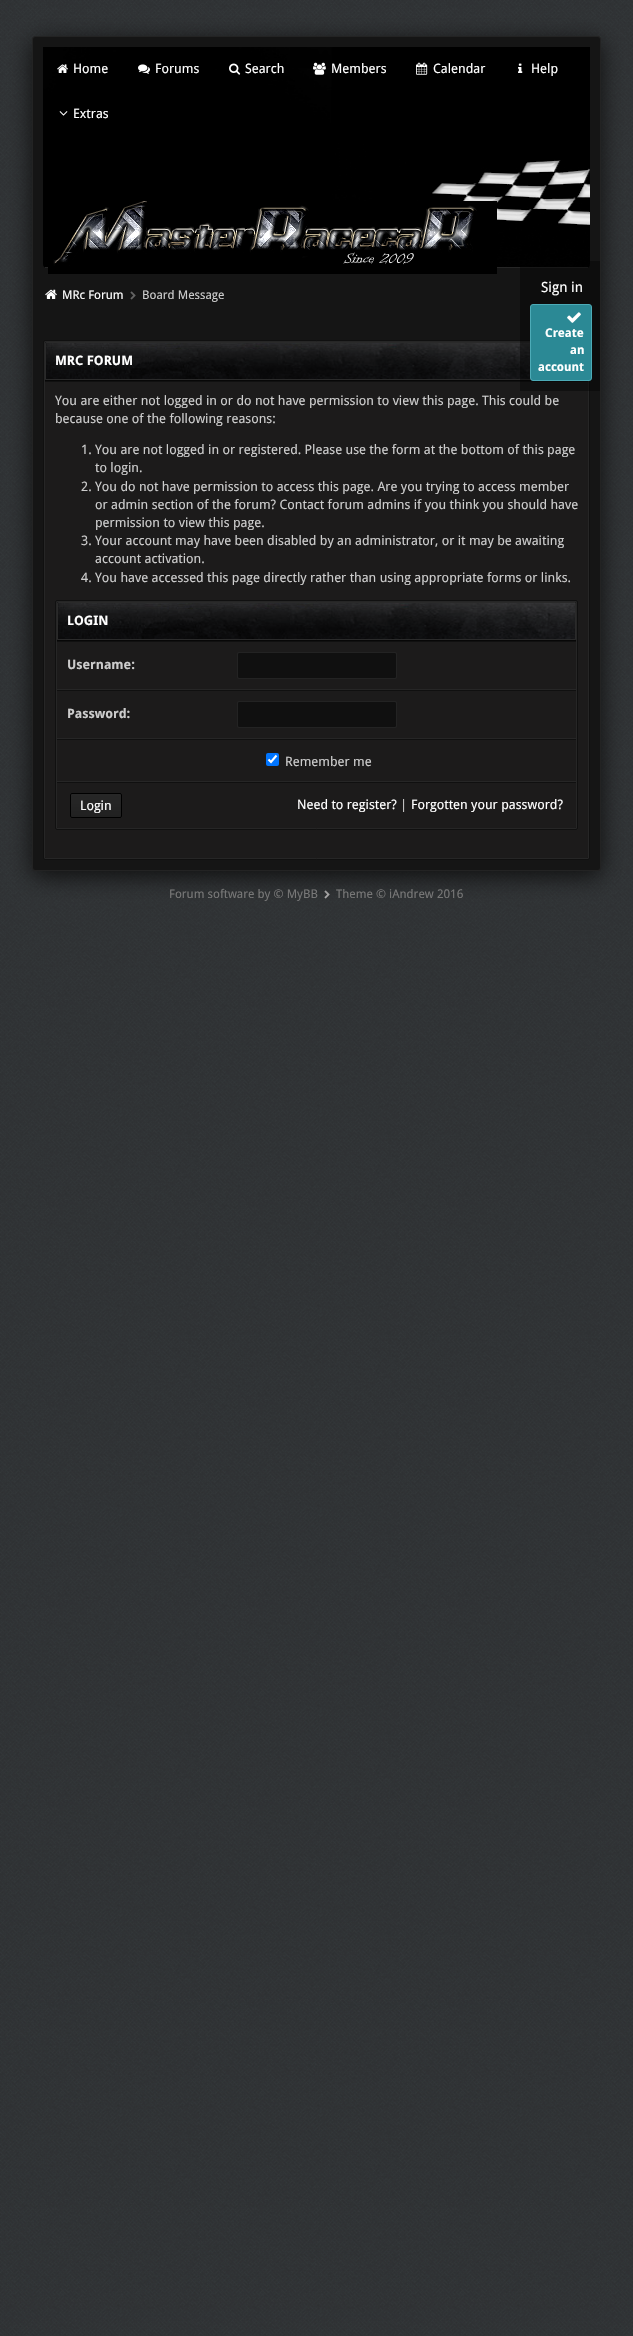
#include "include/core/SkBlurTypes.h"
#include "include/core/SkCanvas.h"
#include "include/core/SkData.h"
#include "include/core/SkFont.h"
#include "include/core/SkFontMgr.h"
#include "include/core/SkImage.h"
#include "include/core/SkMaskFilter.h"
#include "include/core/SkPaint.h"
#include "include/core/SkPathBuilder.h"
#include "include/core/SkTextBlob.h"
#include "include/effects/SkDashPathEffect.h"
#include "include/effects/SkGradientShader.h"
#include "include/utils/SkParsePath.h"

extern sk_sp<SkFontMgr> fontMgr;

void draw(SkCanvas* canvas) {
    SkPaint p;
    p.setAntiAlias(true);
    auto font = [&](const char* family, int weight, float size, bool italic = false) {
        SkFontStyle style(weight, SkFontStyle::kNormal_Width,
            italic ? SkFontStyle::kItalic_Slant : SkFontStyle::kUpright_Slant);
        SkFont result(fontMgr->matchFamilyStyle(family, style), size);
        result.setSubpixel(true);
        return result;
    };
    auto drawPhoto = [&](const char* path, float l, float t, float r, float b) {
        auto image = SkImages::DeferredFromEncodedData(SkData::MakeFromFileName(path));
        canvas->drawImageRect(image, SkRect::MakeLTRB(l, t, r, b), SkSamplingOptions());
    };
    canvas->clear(0xFFFFFFFF);
    drawPhoto("media/1.png", 0, 0, 633, 2336);
    drawPhoto("media/16.png", 324, 890, 330, 899);
    p.setColor(0xFF0D0D0D);
    p.setMaskFilter(SkMaskFilter::MakeBlur(kNormal_SkBlurStyle, 12.5f));
    canvas->drawRoundRect(SkRect::MakeLTRB(32, 41, 601, 876), 3, 3, p);
    p.setMaskFilter(nullptr);
    p.setColor(0xFF151515);
    canvas->drawRoundRect(SkRect::MakeLTRB(32.5f, 36.5f, 600.5f, 870.5f), 2.5f, 2.5f, p);
    p.setStyle(SkPaint::kStroke_Style);
    p.setStrokeWidth(1);
    p.setColor(0xFF232323);
    canvas->drawRoundRect(SkRect::MakeLTRB(32.5f, 36.5f, 600.5f, 870.5f), 2.5f, 2.5f, p);
    drawPhoto("media/9.png", 43, 47, 590, 268);
    p.setStyle(SkPaint::kFill_Style);
    p.setColor(0xCC000000);
    canvas->drawRect(SkRect::MakeLTRB(290, 47, 332, 68), p);
    drawPhoto("media/2.png", 57, 64, 68, 73);
    auto font1 = font("Droid Sans", 400, 13);
    p.setColor(0xFFFFFFFF);
    canvas->drawString("Home", 73, 73, font1, p);
    drawPhoto("media/3.png", 138, 64, 150, 74);
    canvas->drawString("Forums", 155, 73, font1, p);
    drawPhoto("media/4.png", 229, 63, 241, 75);
    canvas->drawString("Search", 245, 73, font1, p);
    drawPhoto("media/5.png", 313, 62, 326, 75);
    canvas->drawString("Members", 331, 73, font1, p);
    drawPhoto("media/6.png", 416, 62, 428, 75);
    canvas->drawString("Calendar", 433, 73, font1, p);
    drawPhoto("media/7.png", 518, 63, 523, 73);
    canvas->drawString("Help", 531, 73, font1, p);
    drawPhoto("media/8.png", 59, 111, 68, 116);
    canvas->drawString("Extras", 73, 118, font1, p);
    p.setColor(0xFF262626);
    canvas->drawRect(SkRect::MakeLTRB(45, 267, 588, 268), p);
    drawPhoto("media/10.png", 48, 201, 497, 274);
    p.setColor(0xFF181818);
    canvas->drawRoundRect(SkRect::MakeLTRB(44.5f, 341.5f, 588.5f, 858.5f), 0.5f, 0.5f, p);
    p.setStyle(SkPaint::kStroke_Style);
    p.setColor(0xFF262626);
    canvas->drawRoundRect(SkRect::MakeLTRB(44.5f, 341.5f, 588.5f, 858.5f), 0.5f, 0.5f, p);
    p.setColor(0xFF101010);
    canvas->drawRoundRect(SkRect::MakeLTRB(43.5f, 340.5f, 589.5f, 859.5f), 1.5f, 1.5f, p);
    drawPhoto("media/14.png", 45, 342, 531, 379);
    p.setColor(0xFF2A2A2A);
    canvas->drawPath(SkPathBuilder().moveTo(47, 342.5f).lineTo(586, 342.5f).cubicTo(587, 342.5f, 587.5f, 343, 587.5f, 344).lineTo(587.5f, 379.5f).lineTo(45.5f, 379.5f).lineTo(45.5f, 344).cubicTo(45.5f, 343, 46, 342.5f, 47, 342.5f).close().detach(), p);
    p.setStyle(SkPaint::kFill_Style);
    p.setColor(0xFF070707);
    canvas->drawRect(SkRect::MakeLTRB(45, 380, 533, 381), p);
    p.setColor(0xFF1C1B1B);
    canvas->drawPath(SkPathBuilder().moveTo(45, 381).lineTo(588, 381).lineTo(588, 856).cubicTo(588, 857, 587, 858, 586, 858).lineTo(47, 858).cubicTo(46, 858, 45, 857, 45, 856).close().detach(), p);
    p.setColor(0xFF101010);
    canvas->drawRect(SkRect::MakeLTRB(45, 381, 588, 382), p);
    canvas->save();
    canvas->clipPath(SkPathBuilder().moveTo(35, 37).lineTo(598, 37).cubicTo(599, 37, 600, 38, 600, 39).lineTo(600, 868).cubicTo(600, 869, 599, 870, 598, 870).lineTo(35, 870).cubicTo(34, 870, 33, 869, 33, 868).lineTo(33, 39).cubicTo(33, 38, 34, 37, 35, 37).close().detach(), true);
    p.setColor(0x66000000);
    canvas->drawPath(SkPathBuilder().moveTo(523, 261).lineTo(599, 261).cubicTo(600.5f, 261, 602, 262.5f, 602, 264).lineTo(602, 391).lineTo(520, 391).lineTo(520, 264).cubicTo(520, 262.5f, 521.5f, 261, 523, 261).close().detach(), p);
    canvas->restore();
    auto font2 = font("Droid Sans", 400, 14);
    p.setColor(0xFFFFFFFF);
    canvas->drawString("Sign in", 541, 292, font2, p);
    p.setColor(0xFF2B8995);
    canvas->drawRoundRect(SkRect::MakeLTRB(530.5f, 304.5f, 591.5f, 380.5f), 2.5f, 2.5f, p);
    p.setStyle(SkPaint::kStroke_Style);
    p.setColor(0xFF4DABB7);
    canvas->drawRoundRect(SkRect::MakeLTRB(530.5f, 304.5f, 591.5f, 380.5f), 2.5f, 2.5f, p);
    drawPhoto("media/11.png", 567, 312, 581, 323);
    auto font3 = font("Droid Sans", 700, 12);
    p.setStyle(SkPaint::kFill_Style);
    p.setColor(0xFFFFFFFF);
    {
        const struct { const char* s; float x, y; } items[] = {
            {"Create", 545, 337},
            {"an", 570, 354},
            {"account", 538, 371},
        };
        for (auto [s, x, y] : items) {
            canvas->drawString(s, x, y, font3, p);
        }
    }
    drawPhoto("media/12.png", 45, 289, 57, 299);
    auto font4 = font("Droid Sans", 400, 12);
    canvas->drawString("MRc Forum", 62, 299, font4, p);
    drawPhoto("media/13.png", 130, 291, 136, 300);
    p.setColor(0xFFCCCCCC);
    canvas->drawString("Board Message", 142, 299, font4, p);
    auto font5 = font("Droid Sans", 700, 13);
    p.setColor(0xFFFFFFFF);
    canvas->drawString("MRC FORUM", 55, 365, font5, p);
    p.setColor(0xFFCCCCCC);
    {
        const struct { const char* s; float x, y; } items[] = {
            {"You are either not logged in or do not have permission to view this page. This could be", 55, 405},
            {"because one of the following reasons:", 55, 423},
            {"1. You are not logged in or registered. Please use the form at the bottom of this page", 81, 454},
            {"to login.", 95, 472},
            {"2. You do not have permission to access this page. Are you trying to access member", 81, 491},
            {"or admin section of the forum? Contact forum admins if you think you should have", 95, 509},
            {"permission to view this page.", 95, 527},
            {"3. Your account may have been disabled by an administrator, or it may be awaiting", 81, 545},
            {"account activation.", 95, 563},
            {"4. You have accessed this page directly rather than using appropriate forms or links.", 81, 582},
        };
        for (auto [s, x, y] : items) {
            canvas->drawString(s, x, y, font1, p);
        }
    }
    p.setColor(0xFF181818);
    canvas->drawRoundRect(SkRect::MakeLTRB(56.5f, 601.5f, 576.5f, 828.5f), 0.5f, 0.5f, p);
    p.setStyle(SkPaint::kStroke_Style);
    p.setColor(0xFF262626);
    canvas->drawRoundRect(SkRect::MakeLTRB(56.5f, 601.5f, 576.5f, 828.5f), 0.5f, 0.5f, p);
    p.setColor(0xFF101010);
    canvas->drawRoundRect(SkRect::MakeLTRB(55.5f, 600.5f, 577.5f, 829.5f), 1.5f, 1.5f, p);
    drawPhoto("media/15.png", 57, 602, 576, 639);
    p.setColor(0xFF2A2A2A);
    canvas->drawPath(SkPathBuilder().moveTo(59, 602.5f).lineTo(574, 602.5f).cubicTo(575, 602.5f, 575.5f, 603, 575.5f, 604).lineTo(575.5f, 639.5f).lineTo(57.5f, 639.5f).lineTo(57.5f, 604).cubicTo(57.5f, 603, 58, 602.5f, 59, 602.5f).close().detach(), p);
    p.setStyle(SkPaint::kFill_Style);
    p.setColor(0xFF070707);
    canvas->drawRect(SkRect::MakeLTRB(57, 640, 576, 641), p);
    p.setColor(0xFFFFFFFF);
    canvas->drawString("LOGIN", 67, 625, font5, p);
    {
        const struct { float l, t, r, b; SkColor color; } items[] = {
            {57, 642, 576, 689, 0xFF1C1B1B},
            {57, 641, 576, 642, 0xFF101010},
            {57, 689, 576, 690, 0xFF262626},
        };
        for (auto [l, t, r, b, color] : items) {
            p.setColor(color);
            canvas->drawRect(SkRect::MakeLTRB(l, t, r, b), p);
        }
    }
    p.setColor(0xFFCCCCCC);
    canvas->drawString("Username:", 67, 669, font5, p);
    p.setColor(0xFF101010);
    canvas->drawRoundRect(SkRect::MakeLTRB(237.5f, 652.5f, 396.5f, 678.5f), 1.5f, 1.5f, p);
    p.setStyle(SkPaint::kStroke_Style);
    p.setColor(0xFF232323);
    canvas->drawRoundRect(SkRect::MakeLTRB(237.5f, 652.5f, 396.5f, 678.5f), 1.5f, 1.5f, p);
    p.setStyle(SkPaint::kFill_Style);
    {
        const struct { float l, t, r, b; SkColor color; } items[] = {
            {57, 691, 576, 738, 0xFF1C1B1B},
            {57, 690, 576, 691, 0xFF101010},
            {57, 738, 576, 739, 0xFF262626},
        };
        for (auto [l, t, r, b, color] : items) {
            p.setColor(color);
            canvas->drawRect(SkRect::MakeLTRB(l, t, r, b), p);
        }
    }
    p.setColor(0xFFCCCCCC);
    canvas->drawString("Password:", 67, 718, font5, p);
    p.setColor(0xFF101010);
    canvas->drawRoundRect(SkRect::MakeLTRB(237.5f, 701.5f, 396.5f, 727.5f), 1.5f, 1.5f, p);
    p.setStyle(SkPaint::kStroke_Style);
    p.setColor(0xFF232323);
    canvas->drawRoundRect(SkRect::MakeLTRB(237.5f, 701.5f, 396.5f, 727.5f), 1.5f, 1.5f, p);
    p.setStyle(SkPaint::kFill_Style);
    {
        const struct { float l, t, r, b; SkColor color; } items[] = {
            {57, 740, 576, 781, 0xFF1C1B1B},
            {57, 739, 576, 740, 0xFF101010},
            {57, 781, 576, 782, 0xFF262626},
        };
        for (auto [l, t, r, b, color] : items) {
            p.setColor(color);
            canvas->drawRect(SkRect::MakeLTRB(l, t, r, b), p);
        }
    }
    p.setColor(0xFF0075FF);
    canvas->drawRoundRect(SkRect::MakeLTRB(266, 753, 279, 766), 2, 2, p);
    p.setStyle(SkPaint::kStroke_Style);
    p.setStrokeWidth(2.1f);
    p.setColor(0xFFFFFFFF);
    canvas->drawPath(SkPathBuilder().moveTo(268.5f, 759.5f).lineTo(271, 762).lineTo(276.5f, 755.5f).detach(), p);
    p.setStyle(SkPaint::kFill_Style);
    p.setColor(0xFFCCCCCC);
    canvas->drawString("Remember me", 285, 766, font1, p);
    p.setColor(0xFF1C1B1B);
    canvas->drawPath(SkPathBuilder().moveTo(57, 782).lineTo(576, 782).lineTo(576, 826).cubicTo(576, 827, 575, 828, 574, 828).lineTo(59, 828).cubicTo(58, 828, 57, 827, 57, 826).close().detach(), p);
    p.setColor(0xFF101010);
    canvas->drawRect(SkRect::MakeLTRB(57, 782, 576, 783), p);
    canvas->save();
    canvas->clipPath(SkPathBuilder().moveTo(72, 793).lineTo(120, 793).cubicTo(121, 793, 122, 794, 122, 795).lineTo(122, 816).cubicTo(122, 817, 121, 818, 120, 818).lineTo(72, 818).cubicTo(71, 818, 70, 817, 70, 816).lineTo(70, 795).cubicTo(70, 794, 71, 793, 72, 793).close().detach(), true);
    {
        const SkColor colors[] = {0xFF272727, 0xFF212121};
        const float stops[] = {0, 1};
        const SkPoint ends[] = {{96, 794}, {96, 817}};
        p.setShader(SkGradientShader::MakeLinear(ends, colors, stops, 2, SkTileMode::kClamp));
        p.setAlpha(255);
    }
    canvas->drawRect(SkRect::MakeLTRB(70, 794, 122, 817), p);
    canvas->restore();
    p.setStyle(SkPaint::kStroke_Style);
    p.setStrokeWidth(1);
    p.setShader(nullptr);
    p.setColor(0xFF000000);
    canvas->drawRoundRect(SkRect::MakeLTRB(70.5f, 793.5f, 121.5f, 817.5f), 1.5f, 1.5f, p);
    p.setStyle(SkPaint::kFill_Style);
    p.setColor(0xFFFFFFFF);
    canvas->drawString("Login", 80, 810, font1, p);
    canvas->drawString("Need to register?", 297, 809, font1, p);
    p.setColor(0xFFCCCCCC);
    canvas->drawString("|", 400, 809, font1, p);
    p.setColor(0xFFFFFFFF);
    canvas->drawString("Forgotten your password?", 411, 809, font1, p);
    p.setColor(0xFF777777);
    canvas->drawString("Forum software by © MyBB", 169, 898, font4, p);
    canvas->drawString("Theme © iAndrew 2016", 336, 898, font4, p);
}
